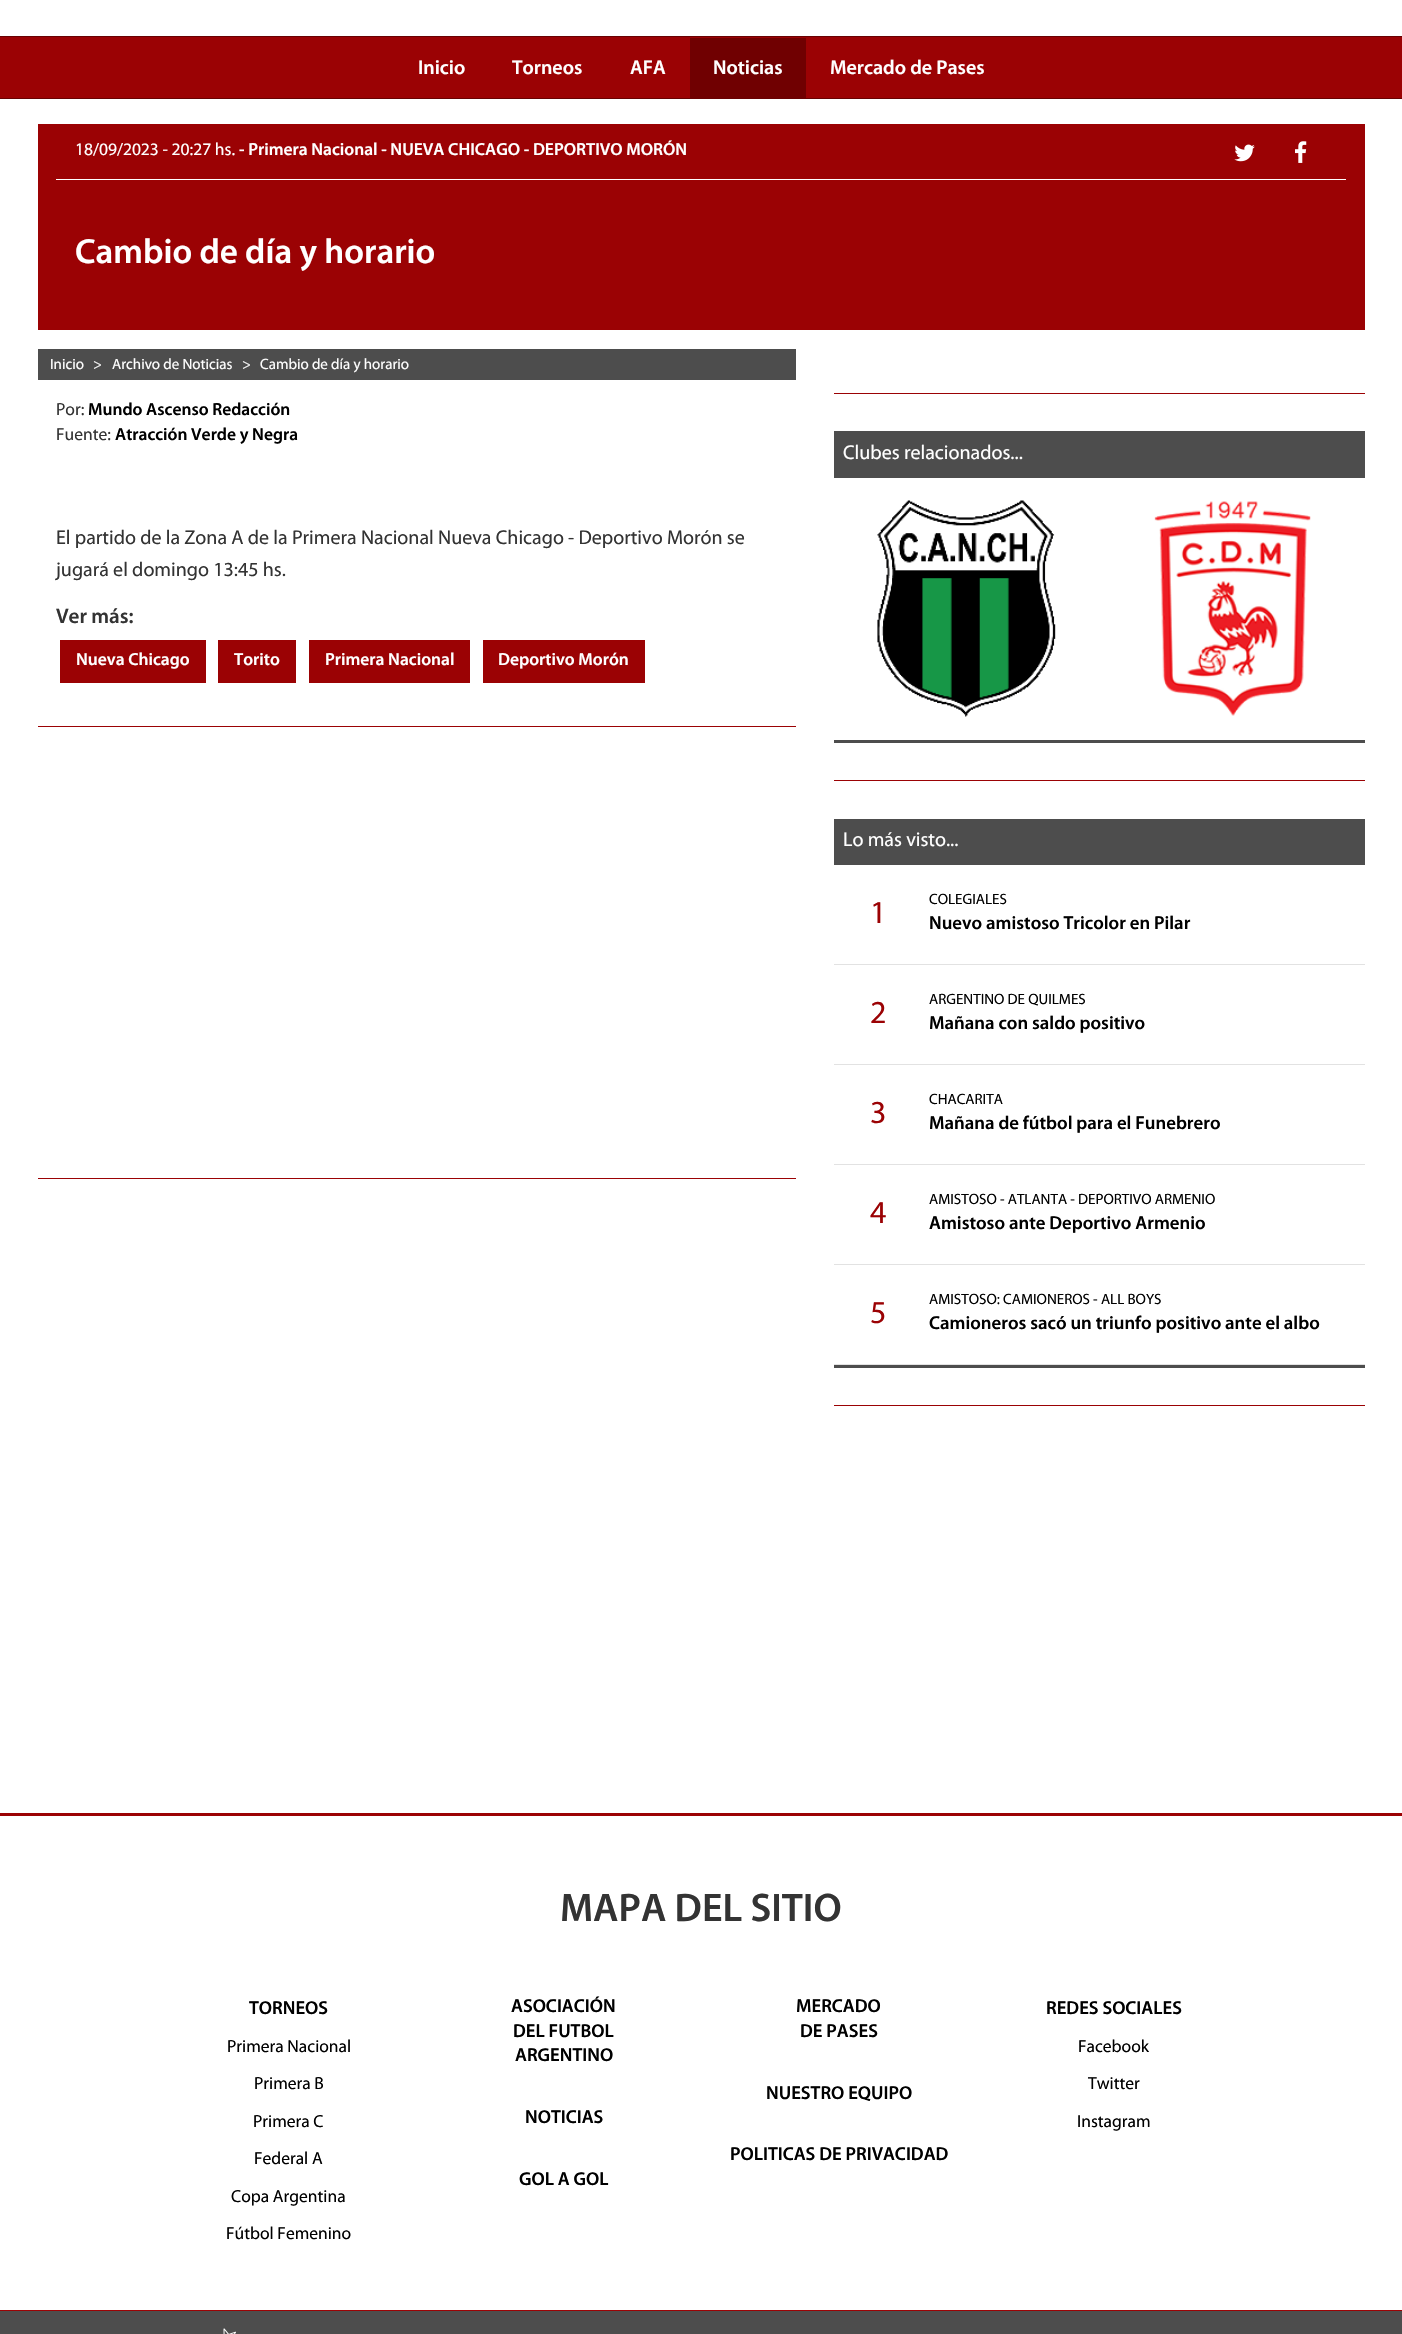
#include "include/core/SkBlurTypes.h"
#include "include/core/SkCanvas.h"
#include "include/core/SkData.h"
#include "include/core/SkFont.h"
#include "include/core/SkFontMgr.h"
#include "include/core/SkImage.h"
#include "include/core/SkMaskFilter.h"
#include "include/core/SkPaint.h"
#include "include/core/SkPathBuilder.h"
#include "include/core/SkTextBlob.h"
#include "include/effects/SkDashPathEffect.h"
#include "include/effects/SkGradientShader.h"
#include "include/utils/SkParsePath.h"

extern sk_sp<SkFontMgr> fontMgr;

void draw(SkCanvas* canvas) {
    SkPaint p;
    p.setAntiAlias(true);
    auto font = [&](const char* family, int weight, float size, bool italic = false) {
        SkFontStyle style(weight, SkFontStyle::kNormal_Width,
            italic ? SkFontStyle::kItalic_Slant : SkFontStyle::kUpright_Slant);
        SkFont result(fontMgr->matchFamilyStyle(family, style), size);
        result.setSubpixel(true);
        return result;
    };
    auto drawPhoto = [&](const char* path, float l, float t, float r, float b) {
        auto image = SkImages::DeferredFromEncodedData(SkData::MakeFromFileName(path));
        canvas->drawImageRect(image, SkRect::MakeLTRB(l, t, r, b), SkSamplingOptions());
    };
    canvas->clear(0xFFFFFFFF);
    {
        const struct { float l, t, r, b; SkColor color; } items[] = {
            {0, 37, 1402, 98, 0xFF9B0204},
            {0, 36, 1402, 37, 0xFF680203},
            {0, 98, 1402, 99, 0xFF680203},
        };
        for (auto [l, t, r, b, color] : items) {
            p.setColor(color);
            canvas->drawRect(SkRect::MakeLTRB(l, t, r, b), p);
        }
    }
    auto font1 = font("Myriad", 600, 20);
    p.setColor(0xFFFFFFFF);
    {
        const struct { const char* s; float x, y; } items[] = {
            {"Inicio", 418, 74},
            {"Torneos", 512, 74},
            {"AFA", 630, 74},
        };
        for (auto [s, x, y] : items) {
            canvas->drawString(s, x, y, font1, p);
        }
    }
    p.setColor(0xFF700001);
    canvas->drawRect(SkRect::MakeLTRB(690, 38, 806, 98), p);
    p.setColor(0xFFFFFFFF);
    canvas->drawString("Noticias", 713, 74, font1, p);
    canvas->drawString("Mercado de Pases", 830, 74, font1, p);
    p.setColor(0xFF9B0204);
    canvas->drawRect(SkRect::MakeLTRB(38, 124, 1365, 330), p);
    p.setColor(0xFFFFFFFF);
    canvas->drawRect(SkRect::MakeLTRB(56, 179, 1346, 180), p);
    auto font2 = font("Myriad", 400, 17.5f);
    canvas->drawString("18/09/2023 - 20:27 hs.", 75, 155, font2, p);
    auto font3 = font("Myriad", 600, 17.5f);
    canvas->drawString("- Primera Nacional - NUEVA CHICAGO - DEPORTIVO MORÓN", 239, 155, font3, p);
    drawPhoto("media/1.png", 1234, 144, 1255, 162);
    drawPhoto("media/2.png", 1295, 141, 1307, 163);
    auto font4 = font("Myriad", 600, 35);
    canvas->drawString("Cambio de día y horario", 75, 263, font4, p);
    p.setColor(0xFF4D4D4D);
    canvas->drawRect(SkRect::MakeLTRB(38, 349, 796, 380), p);
    auto font5 = font("Myriad", 400, 15);
    p.setColor(0xFFFFFFFF);
    canvas->drawString("Inicio", 50, 369, font5, p);
    p.setColor(0xFFF5F5F5);
    canvas->drawString(">", 93, 369, font5, p);
    p.setColor(0xFFFFFFFF);
    canvas->drawString("Archivo de Noticias", 112, 369, font5, p);
    p.setColor(0xFFF5F5F5);
    canvas->drawString(">", 242, 369, font5, p);
    p.setColor(0xFFFFFFFF);
    canvas->drawString("Cambio de día y horario", 260, 369, font5, p);
    p.setColor(0xFF333333);
    canvas->drawString("Por:", 56, 415, font2, p);
    p.setColor(0xFF000000);
    canvas->drawString("Mundo Ascenso Redacción", 88, 415, font3, p);
    p.setColor(0xFF333333);
    canvas->drawString("Fuente:", 56, 440, font2, p);
    p.setColor(0xFF000000);
    canvas->drawString("Atracción Verde y Negra", 115, 440, font3, p);
    auto font6 = font("Myriad", 400, 20);
    p.setColor(0xFF333333);
    canvas->drawString("El partido de la Zona A de la Primera Nacional Nueva Chicago - Deportivo Morón se", 56, 544, font6, p);
    canvas->drawString("jugará el domingo 13:45 hs.", 56, 576, font6, p);
    auto font7 = font("Myriad", 600, 21);
    canvas->drawString("Ver más:", 56, 623, font7, p);
    p.setColor(0xFF9B0204);
    canvas->drawRect(SkRect::MakeLTRB(60, 640, 206, 683), p);
    p.setColor(0xFFFFFFFF);
    canvas->drawString("Nueva Chicago", 76, 665, font3, p);
    p.setColor(0xFF9B0204);
    canvas->drawRect(SkRect::MakeLTRB(218, 640, 296, 683), p);
    p.setColor(0xFFFFFFFF);
    canvas->drawString("Torito", 234, 665, font3, p);
    p.setColor(0xFF9B0204);
    canvas->drawRect(SkRect::MakeLTRB(309, 640, 470, 683), p);
    p.setColor(0xFFFFFFFF);
    canvas->drawString("Primera Nacional", 325, 665, font3, p);
    p.setColor(0xFF9B0204);
    canvas->drawRect(SkRect::MakeLTRB(483, 640, 645, 683), p);
    p.setColor(0xFFFFFFFF);
    canvas->drawString("Deportivo Morón", 498, 665, font3, p);
    {
        const struct { float l, t, r, b; SkColor color; } items[] = {
            {38, 726, 796, 727, 0xFF9B0204},
            {38, 1178, 796, 1179, 0xFF9B0204},
            {834, 393, 1365, 394, 0xFF9B0204},
            {834, 431, 1365, 478, 0xFF4D4D4D},
        };
        for (auto [l, t, r, b, color] : items) {
            p.setColor(color);
            canvas->drawRect(SkRect::MakeLTRB(l, t, r, b), p);
        }
    }
    p.setColor(0xFFFFFFFF);
    canvas->drawString("Clubes relacionados...", 843, 459, font6, p);
    p.setColor(0xFF4D4D4D);
    canvas->drawRect(SkRect::MakeLTRB(834, 740, 1365, 743), p);
    drawPhoto("media/3.png", 877, 500, 1056, 717);
    drawPhoto("media/4.png", 1154, 501, 1311, 716);
    p.setColor(0xFF9B0204);
    canvas->drawRect(SkRect::MakeLTRB(834, 780, 1365, 781), p);
    p.setColor(0xFF4D4D4D);
    canvas->drawRect(SkRect::MakeLTRB(834, 819, 1365, 865), p);
    p.setColor(0xFFFFFFFF);
    canvas->drawString("Lo más visto...", 843, 846, font6, p);
    p.setColor(0xFF4D4D4D);
    canvas->drawRect(SkRect::MakeLTRB(834, 1365, 1365, 1368), p);
    p.setColor(0xFFE2E2E2);
    canvas->drawRect(SkRect::MakeLTRB(834, 964, 1365, 965), p);
    auto font8 = font("Myriad", 400, 32);
    p.setColor(0xFF9B0204);
    canvas->drawString("1", 870, 923, font8, p);
    p.setColor(0xFF000000);
    canvas->drawString("COLEGIALES", 929, 904, font5, p);
    auto font9 = font("Myriad", 600, 18.75f);
    canvas->drawString("Nuevo amistoso Tricolor en Pilar", 929, 929, font9, p);
    p.setColor(0xFFE2E2E2);
    canvas->drawRect(SkRect::MakeLTRB(834, 1064, 1365, 1065), p);
    p.setColor(0xFF9B0204);
    canvas->drawString("2", 870, 1023, font8, p);
    p.setColor(0xFF000000);
    canvas->drawString("ARGENTINO DE QUILMES", 929, 1004, font5, p);
    canvas->drawString("Mañana con saldo positivo", 929, 1029, font9, p);
    p.setColor(0xFFE2E2E2);
    canvas->drawRect(SkRect::MakeLTRB(834, 1164, 1365, 1165), p);
    p.setColor(0xFF9B0204);
    canvas->drawString("3", 870, 1123, font8, p);
    p.setColor(0xFF000000);
    canvas->drawString("CHACARITA", 929, 1104, font5, p);
    canvas->drawString("Mañana de fútbol para el Funebrero", 929, 1129, font9, p);
    p.setColor(0xFFE2E2E2);
    canvas->drawRect(SkRect::MakeLTRB(834, 1264, 1365, 1265), p);
    p.setColor(0xFF9B0204);
    canvas->drawString("4", 870, 1223, font8, p);
    p.setColor(0xFF000000);
    canvas->drawString("AMISTOSO - ATLANTA - DEPORTIVO ARMENIO", 929, 1204, font5, p);
    canvas->drawString("Amistoso ante Deportivo Armenio", 929, 1229, font9, p);
    p.setColor(0xFFE2E2E2);
    canvas->drawRect(SkRect::MakeLTRB(834, 1364, 1365, 1365), p);
    p.setColor(0xFF9B0204);
    canvas->drawString("5", 870, 1323, font8, p);
    p.setColor(0xFF000000);
    canvas->drawString("AMISTOSO: CAMIONEROS - ALL BOYS", 929, 1304, font5, p);
    canvas->drawString("Camioneros sacó un triunfo positivo ante el albo", 929, 1329, font9, p);
    p.setColor(0xFF9B0204);
    canvas->drawRect(SkRect::MakeLTRB(834, 1405, 1365, 1406), p);
    canvas->drawRect(SkRect::MakeLTRB(0, 1813, 1402, 1816), p);
    auto font10 = font("Myriad", 600, 40);
    p.setColor(0xFF333333);
    canvas->drawString("MAPA DEL SITIO", 560, 1921, font10, p);
    p.setColor(0xFF000000);
    canvas->drawString("TORNEOS", 249, 2014, font9, p);
    {
        const struct { const char* s; float x, y; } items[] = {
            {"Primera Nacional", 227, 2052},
            {"Primera B", 254, 2089},
            {"Primera C", 253, 2127},
            {"Federal A", 254, 2164},
            {"Copa Argentina", 231, 2202},
            {"Fútbol Femenino", 226, 2239},
        };
        for (auto [s, x, y] : items) {
            canvas->drawString(s, x, y, font2, p);
        }
    }
    {
        const struct { const char* s; float x, y; } items[] = {
            {"ASOCIACIÓN", 511, 2012},
            {"DEL FUTBOL", 513, 2037},
            {"ARGENTINO", 515, 2061},
            {"NOTICIAS", 525, 2123},
            {"GOL A GOL", 519, 2185},
            {"MERCADO", 796, 2012},
            {"DE PASES", 800, 2037},
            {"NUESTRO EQUIPO", 766, 2099},
            {"POLITICAS DE PRIVACIDAD", 730, 2160},
            {"REDES SOCIALES", 1046, 2014},
        };
        for (auto [s, x, y] : items) {
            canvas->drawString(s, x, y, font9, p);
        }
    }
    {
        const struct { const char* s; float x, y; } items[] = {
            {"Facebook", 1078, 2052},
            {"Twitter", 1088, 2089},
            {"Instagram", 1077, 2127},
        };
        for (auto [s, x, y] : items) {
            canvas->drawString(s, x, y, font2, p);
        }
    }
    p.setColor(0xFF4D4D4D);
    canvas->drawRect(SkRect::MakeLTRB(0, 2311, 1402, 2334), p);
    p.setColor(0xFF9B0204);
    canvas->drawRect(SkRect::MakeLTRB(0, 2310, 1402, 2311), p);
    drawPhoto("media/5.png", 223, 2328, 236, 2334);
}
